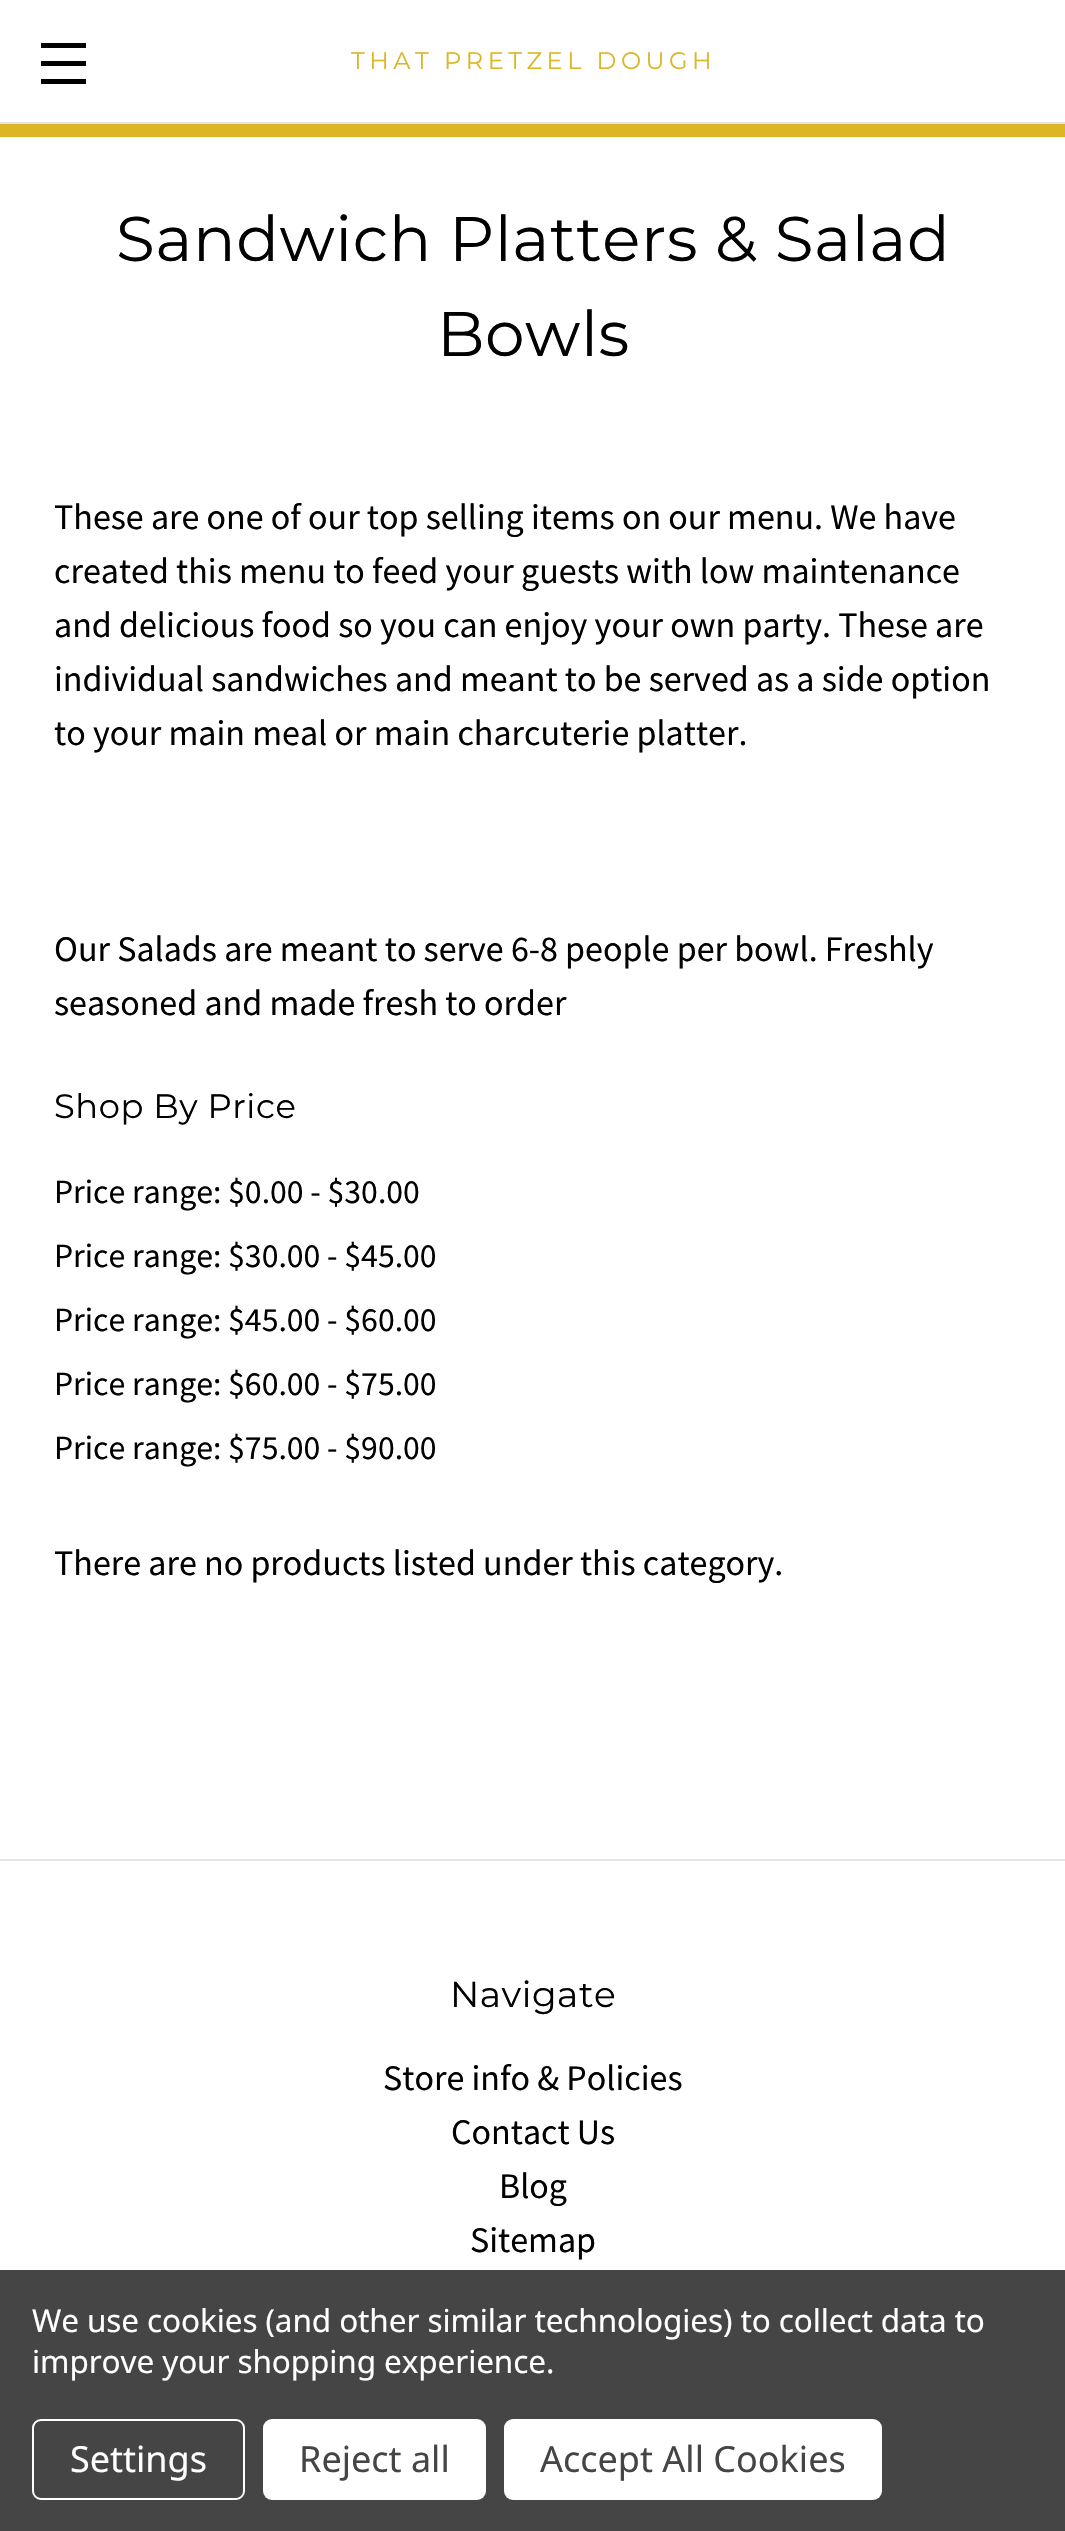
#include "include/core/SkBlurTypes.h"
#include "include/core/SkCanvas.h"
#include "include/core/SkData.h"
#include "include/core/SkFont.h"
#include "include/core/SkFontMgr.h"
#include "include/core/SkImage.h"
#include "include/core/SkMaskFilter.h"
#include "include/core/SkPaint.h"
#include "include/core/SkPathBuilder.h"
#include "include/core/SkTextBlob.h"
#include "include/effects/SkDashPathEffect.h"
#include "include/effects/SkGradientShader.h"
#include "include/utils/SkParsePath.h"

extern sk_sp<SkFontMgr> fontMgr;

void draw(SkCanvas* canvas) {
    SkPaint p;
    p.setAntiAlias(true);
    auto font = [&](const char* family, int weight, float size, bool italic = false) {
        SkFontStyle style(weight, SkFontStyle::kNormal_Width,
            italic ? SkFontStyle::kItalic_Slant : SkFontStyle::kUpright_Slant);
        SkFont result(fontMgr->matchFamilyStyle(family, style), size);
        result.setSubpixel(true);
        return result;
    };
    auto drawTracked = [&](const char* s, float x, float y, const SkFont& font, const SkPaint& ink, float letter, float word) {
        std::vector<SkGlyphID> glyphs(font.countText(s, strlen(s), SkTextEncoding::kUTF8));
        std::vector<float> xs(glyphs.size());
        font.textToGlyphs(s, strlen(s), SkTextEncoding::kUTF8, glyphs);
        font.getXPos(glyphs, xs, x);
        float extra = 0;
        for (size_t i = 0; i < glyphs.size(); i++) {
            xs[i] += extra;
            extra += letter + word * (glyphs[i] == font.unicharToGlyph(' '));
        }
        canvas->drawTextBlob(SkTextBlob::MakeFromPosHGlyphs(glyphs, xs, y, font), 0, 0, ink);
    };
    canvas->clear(0xFFFFFFFF);
    {
        const struct { float l, t, r, b; SkColor color; } items[] = {
            {0, 122, 1065, 124, 0xFFE5E5E5},
            {41, 61, 86, 66, 0xFF000000},
            {41, 43, 86, 48, 0xFF000000},
            {41, 79, 86, 84, 0xFF000000},
        };
        for (auto [l, t, r, b, color] : items) {
            p.setColor(color);
            canvas->drawRect(SkRect::MakeLTRB(l, t, r, b), p);
        }
    }
    auto font1 = font("Montserrat", 400, 24);
    p.setColor(0xFFDDB627);
    drawTracked("THAT PRETZEL DOUGH", 351, 69, font1, p, 4.5f, 0);
    canvas->drawRect(SkRect::MakeLTRB(0, 124, 1065, 137), p);
    auto font2 = font("Montserrat", 400, 63);
    p.setColor(0xFF000000);
    drawTracked("Sandwich Platters & Salad", 116, 261, font2, p, 0.55f, 0);
    drawTracked("Bowls", 437, 356, font2, p, 0.55f, 0);
    auto font3 = font("Source Sans Pro", 400, 36);
    {
        const struct { const char* s; float x, y; } items[] = {
            {"These are one of our top selling items on our menu. We have", 54, 529},
            {"created this menu to feed your guests with low maintenance", 54, 583},
            {"and delicious food so you can enjoy your own party. These are", 54, 637},
            {"individual sandwiches and meant to be served as a side option", 54, 691},
            {"to your main meal or main charcuterie platter.", 54, 745},
            {"Our Salads are meant to serve 6-8 people per bowl. Freshly", 54, 961},
            {"seasoned and made fresh to order", 54, 1015},
        };
        for (auto [s, x, y] : items) {
            canvas->drawString(s, x, y, font3, p);
        }
    }
    auto font4 = font("Montserrat", 400, 33.75f);
    drawTracked("Shop By Price", 54, 1118, font4, p, 0.55f, 0);
    auto font5 = font("Source Sans Pro", 400, 33.75f);
    {
        const struct { const char* s; float x, y; } items[] = {
            {"Price range: $0.00 - $30.00", 54, 1203},
            {"Price range: $30.00 - $45.00", 54, 1267},
            {"Price range: $45.00 - $60.00", 54, 1331},
            {"Price range: $60.00 - $75.00", 54, 1395},
            {"Price range: $75.00 - $90.00", 54, 1459},
        };
        for (auto [s, x, y] : items) {
            canvas->drawString(s, x, y, font5, p);
        }
    }
    canvas->drawString("There are no products listed under this category.", 54, 1575, font3, p);
    p.setColor(0xFFE5E5E5);
    canvas->drawRect(SkRect::MakeLTRB(0, 1859, 1065, 1861), p);
    auto font6 = font("Montserrat", 400, 36);
    p.setColor(0xFF000000);
    drawTracked("Navigate", 450, 2007, font6, p, 0.55f, 0);
    {
        const struct { const char* s; float x, y; } items[] = {
            {"Store info & Policies", 383, 2090},
            {"Contact Us", 451, 2144},
            {"Blog", 499, 2198},
            {"Sitemap", 470, 2252},
        };
        for (auto [s, x, y] : items) {
            canvas->drawString(s, x, y, font3, p);
        }
    }
    p.setColor(0xFF454545);
    canvas->drawRect(SkRect::MakeLTRB(0, 2270, 1065, 2531), p);
    auto font7 = font("Noto Sans", 400, 31.5f);
    p.setColor(0xFFFFFFFF);
    drawTracked("We use cookies (and other similar technologies) to collect data to", 32, 2332, font7, p, -0.1f, 0);
    drawTracked("improve your shopping experience.", 32, 2373, font7, p, -0.1f, 0);
    p.setStyle(SkPaint::kStroke_Style);
    p.setStrokeWidth(2);
    canvas->drawRoundRect(SkRect::MakeLTRB(33, 2420, 244, 2499), 8, 8, p);
    auto font8 = font("Noto Sans", 400, 36);
    p.setStyle(SkPaint::kFill_Style);
    canvas->drawString("Settings", 70, 2472, font8, p);
    canvas->drawRoundRect(SkRect::MakeLTRB(263, 2419, 486, 2500), 9, 9, p);
    p.setColor(0xFF454545);
    canvas->drawString("Reject all", 299, 2472, font8, p);
    p.setColor(0xFFFFFFFF);
    canvas->drawRoundRect(SkRect::MakeLTRB(504, 2419, 882, 2500), 9, 9, p);
    p.setColor(0xFF454545);
    canvas->drawString("Accept All Cookies", 540, 2472, font8, p);
}
